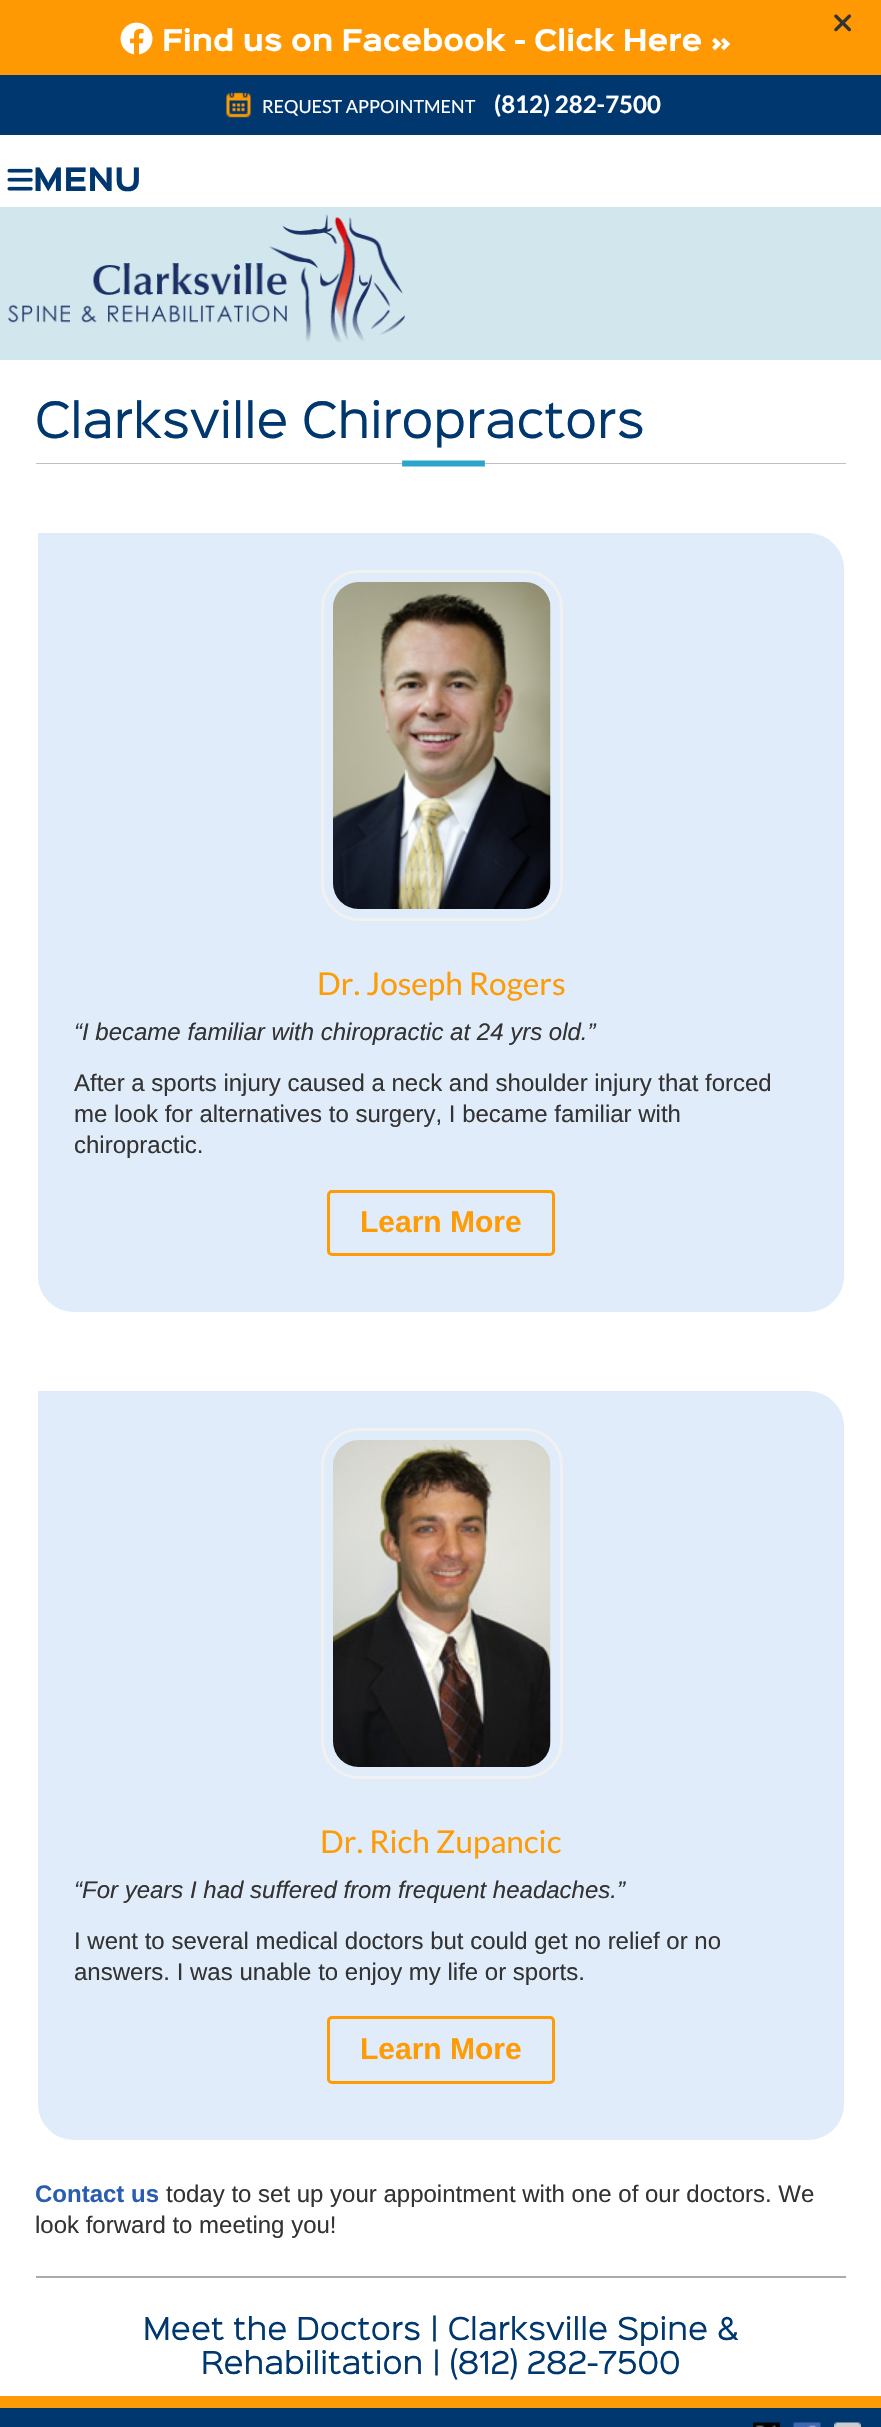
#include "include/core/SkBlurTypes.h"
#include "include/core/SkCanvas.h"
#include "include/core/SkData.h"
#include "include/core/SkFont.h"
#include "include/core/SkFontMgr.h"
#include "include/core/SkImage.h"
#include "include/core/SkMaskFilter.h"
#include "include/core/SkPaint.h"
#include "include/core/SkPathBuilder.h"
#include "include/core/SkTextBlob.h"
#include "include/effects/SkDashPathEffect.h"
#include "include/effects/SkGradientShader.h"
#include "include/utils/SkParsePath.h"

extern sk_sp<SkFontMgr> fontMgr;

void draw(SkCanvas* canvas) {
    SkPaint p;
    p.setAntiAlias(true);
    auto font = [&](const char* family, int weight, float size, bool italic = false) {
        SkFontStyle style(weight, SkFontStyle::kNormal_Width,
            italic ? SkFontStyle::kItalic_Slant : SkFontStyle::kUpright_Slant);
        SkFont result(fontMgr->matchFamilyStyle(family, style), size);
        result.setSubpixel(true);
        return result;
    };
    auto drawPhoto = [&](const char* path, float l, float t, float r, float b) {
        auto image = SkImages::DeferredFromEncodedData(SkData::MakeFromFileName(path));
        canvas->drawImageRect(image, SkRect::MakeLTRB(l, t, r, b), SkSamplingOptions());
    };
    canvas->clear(0xFFFFFFFF);
    p.setColor(0xFFFF9903);
    canvas->drawRect(SkRect::MakeLTRB(0, 0, 881, 75), p);
    drawPhoto("media/1.png", 834, 14, 851, 32);
    drawPhoto("media/2.png", 120, 22, 153, 55);
    auto font1 = font("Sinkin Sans", 700, 27);
    p.setColor(0xFFFFFFFF);
    canvas->drawString("Find us on Facebook - Click Here »", 162, 51, font1, p);
    p.setColor(0xFF00376F);
    canvas->drawRect(SkRect::MakeLTRB(0, 75, 881, 135), p);
    drawPhoto("media/3.png", 226, 92, 251, 118);
    auto font2 = font("Lato", 400, 18);
    p.setColor(0xFFFFFFFF);
    canvas->drawString("REQUEST APPOINTMENT", 262, 113, font2, p);
    auto font3 = font("Lato", 700, 24);
    canvas->drawString("(812) 282-7500", 494, 113, font3, p);
    drawPhoto("media/4.png", 7, 168, 33, 191);
    auto font4 = font("Sinkin Sans", 700, 29);
    p.setColor(0xFF00376F);
    canvas->drawString("MENU", 33, 191, font4, p);
    p.setColor(0xFFD2E6ED);
    canvas->drawRect(SkRect::MakeLTRB(0, 207, 881, 360), p);
    drawPhoto("media/5.png", 8, 214, 405, 343);
    auto font5 = font("Sinkin Sans", 400, 45);
    p.setColor(0xFF00376F);
    canvas->drawString("Clarksville Chiropractors", 35, 438, font5, p);
    drawPhoto("media/6.png", 36, 460, 846, 467);
    p.setColor(0xFFE0ECF9);
    canvas->drawPath(SkPathBuilder().moveTo(37, 532).lineTo(808, 532).cubicTo(828.5f, 532, 845, 548.5f, 845, 569).lineTo(845, 1276).cubicTo(845, 1296.5f, 828.5f, 1313, 808, 1313).lineTo(74, 1313).cubicTo(53.5f, 1313, 37, 1296.5f, 37, 1276).close().detach(), p);
    p.setStyle(SkPaint::kStroke_Style);
    p.setStrokeWidth(2);
    p.setColor(0xFFFFFFFF);
    canvas->drawPath(SkPathBuilder().moveTo(37, 532).lineTo(808, 532).cubicTo(828.5f, 532, 845, 548.5f, 845, 569).lineTo(845, 1276).cubicTo(845, 1296.5f, 828.5f, 1313, 808, 1313).lineTo(74, 1313).cubicTo(53.5f, 1313, 37, 1296.5f, 37, 1276).close().detach(), p);
    p.setStrokeWidth(3);
    p.setColor(0xFFF1F1F1);
    canvas->drawRoundRect(SkRect::MakeLTRB(322.5f, 571.5f, 561.5f, 919.5f), 36.5f, 36.5f, p);
    drawPhoto("media/7.png", 333, 582, 551, 909);
    auto font6 = font("Lato", 400, 31.5f);
    p.setStyle(SkPaint::kFill_Style);
    p.setColor(0xFFFE9B05);
    canvas->drawString("Dr. Joseph Rogers", 317, 995, font6, p);
    auto font7 = font("Liberation Sans", 400, 24, true);
    p.setColor(0xFF333333);
    canvas->drawString("“I became familiar with chiropractic at 24 yrs old.”", 74, 1040, font7, p);
    auto font8 = font("Liberation Sans", 400, 24);
    {
        const struct { const char* s; float x, y; } items[] = {
            {"After a sports injury caused a neck and shoulder injury that forced", 74, 1091},
            {"me look for alternatives to surgery, I became familiar with", 74, 1122},
            {"chiropractic.", 74, 1153},
        };
        for (auto [s, x, y] : items) {
            canvas->drawString(s, x, y, font8, p);
        }
    }
    p.setStyle(SkPaint::kStroke_Style);
    p.setColor(0xFFFE9B05);
    canvas->drawRoundRect(SkRect::MakeLTRB(328.5f, 1191.5f, 553.5f, 1254.5f), 3.5f, 3.5f, p);
    auto font9 = font("Liberation Sans", 700, 30);
    p.setStyle(SkPaint::kFill_Style);
    canvas->drawString("Learn More", 360, 1232, font9, p);
    p.setColor(0xFFE0ECF9);
    canvas->drawPath(SkPathBuilder().moveTo(37, 1390).lineTo(808, 1390).cubicTo(828.5f, 1390, 845, 1406.5f, 845, 1427).lineTo(845, 2104).cubicTo(845, 2124.5f, 828.5f, 2141, 808, 2141).lineTo(74, 2141).cubicTo(53.5f, 2141, 37, 2124.5f, 37, 2104).close().detach(), p);
    p.setStyle(SkPaint::kStroke_Style);
    p.setStrokeWidth(2);
    p.setColor(0xFFFFFFFF);
    canvas->drawPath(SkPathBuilder().moveTo(37, 1390).lineTo(808, 1390).cubicTo(828.5f, 1390, 845, 1406.5f, 845, 1427).lineTo(845, 2104).cubicTo(845, 2124.5f, 828.5f, 2141, 808, 2141).lineTo(74, 2141).cubicTo(53.5f, 2141, 37, 2124.5f, 37, 2104).close().detach(), p);
    p.setStrokeWidth(3);
    p.setColor(0xFFF1F1F1);
    canvas->drawRoundRect(SkRect::MakeLTRB(322.5f, 1429.5f, 561.5f, 1777.5f), 36.5f, 36.5f, p);
    drawPhoto("media/8.png", 333, 1440, 551, 1767);
    p.setStyle(SkPaint::kFill_Style);
    p.setColor(0xFFFE9B05);
    canvas->drawString("Dr. Rich Zupancic", 320, 1853, font6, p);
    p.setColor(0xFF333333);
    canvas->drawString("“For years I had suffered from frequent headaches.”", 74, 1898, font7, p);
    canvas->drawString("I went to several medical doctors but could get no relief or no", 74, 1949, font8, p);
    canvas->drawString("answers. I was unable to enjoy my life or sports.", 74, 1980, font8, p);
    p.setStyle(SkPaint::kStroke_Style);
    p.setColor(0xFFFE9B05);
    canvas->drawRoundRect(SkRect::MakeLTRB(328.5f, 2017.5f, 553.5f, 2082.5f), 3.5f, 3.5f, p);
    p.setStyle(SkPaint::kFill_Style);
    canvas->drawString("Learn More", 360, 2059, font9, p);
    auto font10 = font("Liberation Sans", 700, 24);
    p.setColor(0xFF2A5DB0);
    canvas->drawString("Contact us", 35, 2202, font10, p);
    p.setColor(0xFF333333);
    canvas->drawString("today to set up your appointment with one of our doctors. We", 166, 2202, font8, p);
    canvas->drawString("look forward to meeting you!", 35, 2233, font8, p);
    p.setColor(0xFFAAAAAA);
    canvas->drawRect(SkRect::MakeLTRB(36, 2276, 846, 2278), p);
    auto font11 = font("Sinkin Sans", 400, 28.5f);
    p.setColor(0xFF00376F);
    canvas->drawString("Meet the Doctors | Clarksville Spine &", 143, 2340, font11, p);
    canvas->drawString("Rehabilitation | (812) 282-7500", 201, 2374, font11, p);
    canvas->drawRect(SkRect::MakeLTRB(0, 2408, 881, 2427), p);
    p.setColor(0xFFFF9B07);
    canvas->drawRect(SkRect::MakeLTRB(0, 2396, 881, 2408), p);
    drawPhoto("media/9.png", 753, 2422, 780, 2427);
    drawPhoto("media/10.png", 793, 2422, 821, 2427);
    drawPhoto("media/11.png", 834, 2422, 861, 2427);
}
